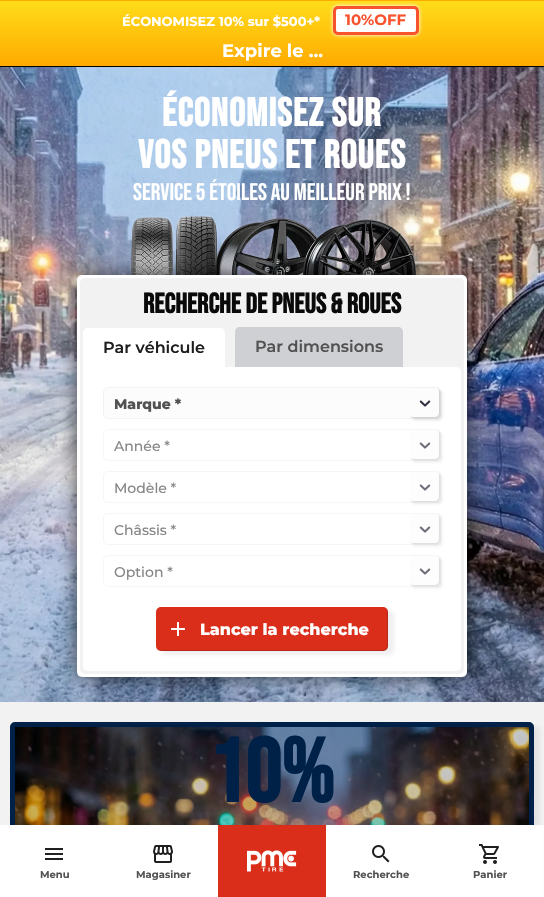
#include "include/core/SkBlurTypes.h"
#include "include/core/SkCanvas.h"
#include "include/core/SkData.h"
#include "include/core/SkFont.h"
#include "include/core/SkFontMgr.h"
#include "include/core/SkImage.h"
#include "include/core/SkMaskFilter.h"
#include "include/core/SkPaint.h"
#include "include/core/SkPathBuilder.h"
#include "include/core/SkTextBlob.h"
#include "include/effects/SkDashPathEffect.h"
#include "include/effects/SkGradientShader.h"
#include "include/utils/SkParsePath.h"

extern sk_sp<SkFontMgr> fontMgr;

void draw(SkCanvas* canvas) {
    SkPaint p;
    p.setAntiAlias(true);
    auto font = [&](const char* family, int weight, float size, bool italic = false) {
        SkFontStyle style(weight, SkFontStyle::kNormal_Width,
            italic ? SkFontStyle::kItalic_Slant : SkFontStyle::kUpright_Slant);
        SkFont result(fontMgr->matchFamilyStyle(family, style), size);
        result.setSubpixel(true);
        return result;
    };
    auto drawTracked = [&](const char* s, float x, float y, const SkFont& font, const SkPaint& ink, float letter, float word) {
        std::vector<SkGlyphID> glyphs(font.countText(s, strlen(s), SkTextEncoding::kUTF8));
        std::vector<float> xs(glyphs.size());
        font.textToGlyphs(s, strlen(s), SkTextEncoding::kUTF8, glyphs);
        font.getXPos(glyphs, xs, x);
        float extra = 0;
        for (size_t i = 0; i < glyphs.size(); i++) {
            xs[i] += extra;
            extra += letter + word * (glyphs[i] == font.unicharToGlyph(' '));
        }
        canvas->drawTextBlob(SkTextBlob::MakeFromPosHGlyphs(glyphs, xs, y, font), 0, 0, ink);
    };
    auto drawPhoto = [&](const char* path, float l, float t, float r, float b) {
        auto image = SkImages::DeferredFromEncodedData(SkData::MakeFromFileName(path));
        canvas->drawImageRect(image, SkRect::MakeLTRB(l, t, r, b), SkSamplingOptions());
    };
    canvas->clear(0xFFFFFFFF);
    {
        const SkColor colors[] = {0xFFFFDC1A, 0xFFFFAB00};
        const float stops[] = {0, 1};
        const SkPoint ends[] = {{272, -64}, {272, 1}};
        p.setShader(SkGradientShader::MakeLinear(ends, colors, stops, 2, SkTileMode::kClamp));
        p.setAlpha(255);
    }
    canvas->drawRect(SkRect::MakeLTRB(0, 0, 544, 1), p);
    {
        const SkColor colors[] = {0xFFFFDC1A, 0xFFFFAB00};
        const float stops[] = {0, 1};
        const SkPoint ends[] = {{272, 1}, {272, 66}};
        p.setShader(SkGradientShader::MakeLinear(ends, colors, stops, 2, SkTileMode::kClamp));
        p.setAlpha(255);
    }
    canvas->drawRect(SkRect::MakeLTRB(0, 1, 544, 66), p);
    p.setShader(nullptr);
    p.setColor(0xFF000000);
    canvas->drawRect(SkRect::MakeLTRB(0, 66, 544, 67), p);
    auto font1 = font("Montserrat", 700, 13);
    p.setColor(0xFFFFFFFF);
    canvas->drawString("ÉCONOMISEZ 10% sur $500+*", 122, 26, font1, p);
    p.setMaskFilter(SkMaskFilter::MakeBlur(kNormal_SkBlurStyle, 2));
    canvas->drawRoundRect(SkRect::MakeLTRB(333, 6, 419, 35), 5, 5, p);
    p.setMaskFilter(nullptr);
    canvas->drawRoundRect(SkRect::MakeLTRB(334.5f, 7.5f, 417.5f, 33.5f), 3.5f, 3.5f, p);
    p.setStyle(SkPaint::kStroke_Style);
    p.setStrokeWidth(3);
    p.setColor(0xFFF8522E);
    canvas->drawRoundRect(SkRect::MakeLTRB(334.5f, 7.5f, 417.5f, 33.5f), 3.5f, 3.5f, p);
    auto font2 = font("Montserrat", 700, 15);
    p.setStyle(SkPaint::kFill_Style);
    canvas->drawString("10%OFF", 345, 25, font2, p);
    auto font3 = font("Montserrat", 700, 18);
    p.setColor(0xFFFFFFFF);
    canvas->drawString("Expire le ...", 222, 57, font3, p);
    p.setColor(0xFFF2F2F2);
    canvas->drawRect(SkRect::MakeLTRB(0, 702, 544, 825), p);
    drawPhoto("media/1.png", 0, 67, 544, 702);
    auto font4 = font("Bebas Neue", 700, 40);
    p.setColor(0xFFFFFFFF);
    drawTracked("Économisez sur", 162, 126, font4, p, 1, 0);
    drawTracked("Vos pneus et roues", 138, 168, font4, p, 1, 0);
    auto font5 = font("Bebas Neue", 400, 24);
    canvas->drawString("Service 5 étoiles au meilleur prix !", 133, 200, font5, p);
    drawPhoto("media/2.png", 129, 215, 418, 275);
    p.setColor(0xB3000000);
    p.setMaskFilter(SkMaskFilter::MakeBlur(kNormal_SkBlurStyle, 10));
    canvas->drawRoundRect(SkRect::MakeLTRB(77, 275, 467, 677), 5, 5, p);
    p.setMaskFilter(nullptr);
    p.setColor(0xFFFFFFFF);
    canvas->drawRoundRect(SkRect::MakeLTRB(77, 275, 467, 677), 5, 5, p);
    p.setColor(0xFFF2F2F2);
    canvas->drawRoundRect(SkRect::MakeLTRB(80, 278, 464, 674), 5, 5, p);
    auto font6 = font("Bebas Neue", 700, 28);
    p.setColor(0xFF0A0A0A);
    canvas->drawString("Recherche de pneus & roues", 143, 313, font6, p);
    p.setColor(0xFFFFFFFF);
    canvas->drawPath(SkPathBuilder().moveTo(88, 328).lineTo(220, 328).cubicTo(223, 328, 225, 330, 225, 333).lineTo(225, 368).lineTo(83, 368).lineTo(83, 333).cubicTo(83, 330, 85, 328, 88, 328).close().detach(), p);
    auto font7 = font("Montserrat", 600, 16);
    p.setColor(0xFF1F1F1F);
    canvas->drawString("Par véhicule", 103, 353, font7, p);
    p.setColor(0xFFCFD0D4);
    canvas->drawPath(SkPathBuilder().moveTo(240, 327).lineTo(398, 327).cubicTo(401, 327, 403, 329, 403, 332).lineTo(403, 368).lineTo(235, 368).lineTo(235, 332).cubicTo(235, 329, 237, 327, 240, 327).close().detach(), p);
    p.setColor(0xFF525252);
    canvas->drawString("Par dimensions", 255, 352, font7, p);
    p.setColor(0xFFFFFFFF);
    canvas->drawPath(SkPathBuilder().moveTo(83, 367).lineTo(456, 367).cubicTo(459, 367, 461, 369, 461, 372).lineTo(461, 666).cubicTo(461, 669, 459, 671, 456, 671).lineTo(88, 671).cubicTo(85, 671, 83, 669, 83, 666).close().detach(), p);
    p.setColor(0xFFFCFCFC);
    canvas->drawRoundRect(SkRect::MakeLTRB(103.5f, 387.5f, 440.5f, 418.5f), 4.5f, 4.5f, p);
    p.setStyle(SkPaint::kStroke_Style);
    p.setStrokeWidth(1);
    p.setColor(0xFFF2F2F2);
    canvas->drawRoundRect(SkRect::MakeLTRB(103.5f, 387.5f, 440.5f, 418.5f), 4.5f, 4.5f, p);
    auto font8 = font("Montserrat", 800, 14);
    p.setStyle(SkPaint::kFill_Style);
    p.setColor(0xFF525252);
    canvas->drawString("Marque *", 114, 409, font8, p);
    p.setColor(0x33646572);
    p.setMaskFilter(SkMaskFilter::MakeBlur(kNormal_SkBlurStyle, 1.5f));
    canvas->drawRoundRect(SkRect::MakeLTRB(412, 390, 442, 420), 4, 4, p);
    p.setMaskFilter(nullptr);
    p.setColor(0xFFFCFCFC);
    canvas->drawRoundRect(SkRect::MakeLTRB(410, 388, 440, 418), 4, 4, p);
    p.setColor(0x29000000);
    canvas->drawPath(SkPathBuilder().moveTo(410.5f, 416).cubicTo(411, 417, 412.5f, 418, 414, 418).lineTo(436, 418).cubicTo(438, 418, 440, 416, 440, 414).lineTo(440, 392).cubicTo(440, 390.5f, 439, 389, 438, 388.5f).cubicTo(438.5f, 389.5f, 439, 390, 439, 391).lineTo(439, 413).cubicTo(439, 415, 437, 417, 435, 417).lineTo(413, 417).cubicTo(412, 417, 411.5f, 416.5f, 410.5f, 416).close().detach(), p);
    drawPhoto("media/3.png", 419, 400, 431, 407);
    p.setStyle(SkPaint::kStroke_Style);
    p.setColor(0xFFF6F6F6);
    canvas->drawRoundRect(SkRect::MakeLTRB(103.5f, 429.5f, 440.5f, 460.5f), 4.5f, 4.5f, p);
    auto font9 = font("Montserrat", 500, 14);
    p.setStyle(SkPaint::kFill_Style);
    p.setColor(0xFF868686);
    canvas->drawString("Année *", 114, 451, font9, p);
    p.setColor(0x3393939C);
    p.setMaskFilter(SkMaskFilter::MakeBlur(kNormal_SkBlurStyle, 1.5f));
    canvas->drawRoundRect(SkRect::MakeLTRB(412, 432, 442, 462), 4, 4, p);
    p.setMaskFilter(nullptr);
    p.setColor(0xFFFDFDFD);
    canvas->drawRoundRect(SkRect::MakeLTRB(410, 430, 440, 460), 4, 4, p);
    p.setColor(0x294D4D4D);
    canvas->drawPath(SkPathBuilder().moveTo(410.5f, 458).cubicTo(411, 459, 412.5f, 460, 414, 460).lineTo(436, 460).cubicTo(438, 460, 440, 458, 440, 456).lineTo(440, 434).cubicTo(440, 432.5f, 439, 431, 438, 430.5f).cubicTo(438.5f, 431.5f, 439, 432, 439, 433).lineTo(439, 455).cubicTo(439, 457, 437, 459, 435, 459).lineTo(413, 459).cubicTo(412, 459, 411.5f, 458.5f, 410.5f, 458).close().detach(), p);
    drawPhoto("media/4.png", 419, 442, 431, 449);
    p.setStyle(SkPaint::kStroke_Style);
    p.setColor(0xFFF6F6F6);
    canvas->drawRoundRect(SkRect::MakeLTRB(103.5f, 471.5f, 440.5f, 502.5f), 4.5f, 4.5f, p);
    p.setStyle(SkPaint::kFill_Style);
    p.setColor(0xFF868686);
    canvas->drawString("Modèle *", 114, 493, font9, p);
    p.setColor(0x3393939C);
    p.setMaskFilter(SkMaskFilter::MakeBlur(kNormal_SkBlurStyle, 1.5f));
    canvas->drawRoundRect(SkRect::MakeLTRB(412, 474, 442, 504), 4, 4, p);
    p.setMaskFilter(nullptr);
    p.setColor(0xFFFDFDFD);
    canvas->drawRoundRect(SkRect::MakeLTRB(410, 472, 440, 502), 4, 4, p);
    p.setColor(0x294D4D4D);
    canvas->drawPath(SkPathBuilder().moveTo(410.5f, 500).cubicTo(411, 501, 412.5f, 502, 414, 502).lineTo(436, 502).cubicTo(438, 502, 440, 500, 440, 498).lineTo(440, 476).cubicTo(440, 474.5f, 439, 473, 438, 472.5f).cubicTo(438.5f, 473.5f, 439, 474, 439, 475).lineTo(439, 497).cubicTo(439, 499, 437, 501, 435, 501).lineTo(413, 501).cubicTo(412, 501, 411.5f, 500.5f, 410.5f, 500).close().detach(), p);
    drawPhoto("media/4.png", 419, 484, 431, 491);
    p.setStyle(SkPaint::kStroke_Style);
    p.setColor(0xFFF6F6F6);
    canvas->drawRoundRect(SkRect::MakeLTRB(103.5f, 513.5f, 440.5f, 544.5f), 4.5f, 4.5f, p);
    p.setStyle(SkPaint::kFill_Style);
    p.setColor(0xFF868686);
    canvas->drawString("Châssis *", 114, 535, font9, p);
    p.setColor(0x3393939C);
    p.setMaskFilter(SkMaskFilter::MakeBlur(kNormal_SkBlurStyle, 1.5f));
    canvas->drawRoundRect(SkRect::MakeLTRB(412, 516, 442, 546), 4, 4, p);
    p.setMaskFilter(nullptr);
    p.setColor(0xFFFDFDFD);
    canvas->drawRoundRect(SkRect::MakeLTRB(410, 514, 440, 544), 4, 4, p);
    p.setColor(0x294D4D4D);
    canvas->drawPath(SkPathBuilder().moveTo(410.5f, 542).cubicTo(411, 543, 412.5f, 544, 414, 544).lineTo(436, 544).cubicTo(438, 544, 440, 542, 440, 540).lineTo(440, 518).cubicTo(440, 516.5f, 439, 515, 438, 514.5f).cubicTo(438.5f, 515.5f, 439, 516, 439, 517).lineTo(439, 539).cubicTo(439, 541, 437, 543, 435, 543).lineTo(413, 543).cubicTo(412, 543, 411.5f, 542.5f, 410.5f, 542).close().detach(), p);
    drawPhoto("media/4.png", 419, 526, 431, 533);
    p.setStyle(SkPaint::kStroke_Style);
    p.setColor(0xFFF6F6F6);
    canvas->drawRoundRect(SkRect::MakeLTRB(103.5f, 555.5f, 440.5f, 586.5f), 4.5f, 4.5f, p);
    p.setStyle(SkPaint::kFill_Style);
    p.setColor(0xFF868686);
    canvas->drawString("Option *", 114, 577, font9, p);
    p.setColor(0x3393939C);
    p.setMaskFilter(SkMaskFilter::MakeBlur(kNormal_SkBlurStyle, 1.5f));
    canvas->drawRoundRect(SkRect::MakeLTRB(412, 558, 442, 588), 4, 4, p);
    p.setMaskFilter(nullptr);
    p.setColor(0xFFFDFDFD);
    canvas->drawRoundRect(SkRect::MakeLTRB(410, 556, 440, 586), 4, 4, p);
    p.setColor(0x294D4D4D);
    canvas->drawPath(SkPathBuilder().moveTo(410.5f, 584).cubicTo(411, 585, 412.5f, 586, 414, 586).lineTo(436, 586).cubicTo(438, 586, 440, 584, 440, 582).lineTo(440, 560).cubicTo(440, 558.5f, 439, 557, 438, 556.5f).cubicTo(438.5f, 557.5f, 439, 558, 439, 559).lineTo(439, 581).cubicTo(439, 583, 437, 585, 435, 585).lineTo(413, 585).cubicTo(412, 585, 411.5f, 584.5f, 410.5f, 584).close().detach(), p);
    drawPhoto("media/4.png", 419, 568, 431, 575);
    p.setColor(0x1A646572);
    p.setMaskFilter(SkMaskFilter::MakeBlur(kNormal_SkBlurStyle, 2));
    canvas->drawRoundRect(SkRect::MakeLTRB(162, 611, 394, 655), 5, 5, p);
    p.setMaskFilter(nullptr);
    p.setColor(0xFFDA2E1B);
    canvas->drawRoundRect(SkRect::MakeLTRB(156, 607, 388, 651), 5, 5, p);
    p.setColor(0x29000000);
    canvas->drawPath(SkPathBuilder().moveTo(157, 649).cubicTo(158, 650, 160, 651, 161, 651).lineTo(383, 651).cubicTo(386, 651, 388, 649, 388, 646).lineTo(388, 612).cubicTo(388, 611, 387, 609, 386, 608).lineTo(387, 611).lineTo(387, 645).cubicTo(387, 648, 385, 650, 382, 650).lineTo(160, 650).close().detach(), p);
    drawPhoto("media/5.png", 171, 622, 185, 636);
    auto font10 = font("Montserrat", 800, 16);
    p.setColor(0xFFFFFFFF);
    canvas->drawString("Lancer la recherche", 200, 635, font10, p);
    p.setColor(0x1A646572);
    p.setMaskFilter(SkMaskFilter::MakeBlur(kNormal_SkBlurStyle, 2));
    canvas->drawRoundRect(SkRect::MakeLTRB(16, 726, 540, 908), 5, 5, p);
    p.setMaskFilter(nullptr);
    p.setStyle(SkPaint::kStroke_Style);
    p.setStrokeWidth(5);
    p.setColor(0xFF002147);
    canvas->drawRoundRect(SkRect::MakeLTRB(12.5f, 724.5f, 531.5f, 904.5f), 2.5f, 2.5f, p);
    drawPhoto("media/6.png", 15, 727, 529, 825);
    auto font11 = font("Bebas Neue", 700, 90);
    p.setStyle(SkPaint::kFill_Style);
    canvas->drawString("10%", 209, 802, font11, p);
    p.setColor(0xFFFFFFFF);
    canvas->drawRect(SkRect::MakeLTRB(10, 825, 218, 897), p);
    drawPhoto("media/7.png", 45, 848, 63, 860);
    auto font12 = font("Montserrat", 700, 10);
    p.setColor(0xFF525252);
    canvas->drawString("Menu", 40, 878, font12, p);
    drawPhoto("media/8.png", 153, 845, 173, 863);
    canvas->drawString("Magasiner", 136, 878, font12, p);
    p.setColor(0xFFDA2E1B);
    canvas->drawRect(SkRect::MakeLTRB(218, 825, 326, 897), p);
    drawPhoto("media/9.png", 247, 850, 297, 872);
    p.setColor(0xFFFFFFFF);
    canvas->drawRect(SkRect::MakeLTRB(326, 825, 542, 897), p);
    drawPhoto("media/10.png", 372, 845, 390, 863);
    p.setColor(0xFF525252);
    canvas->drawString("Recherche", 353, 878, font12, p);
    drawPhoto("media/11.png", 479, 844, 499, 864);
    canvas->drawString("Panier", 473, 878, font12, p);
}
